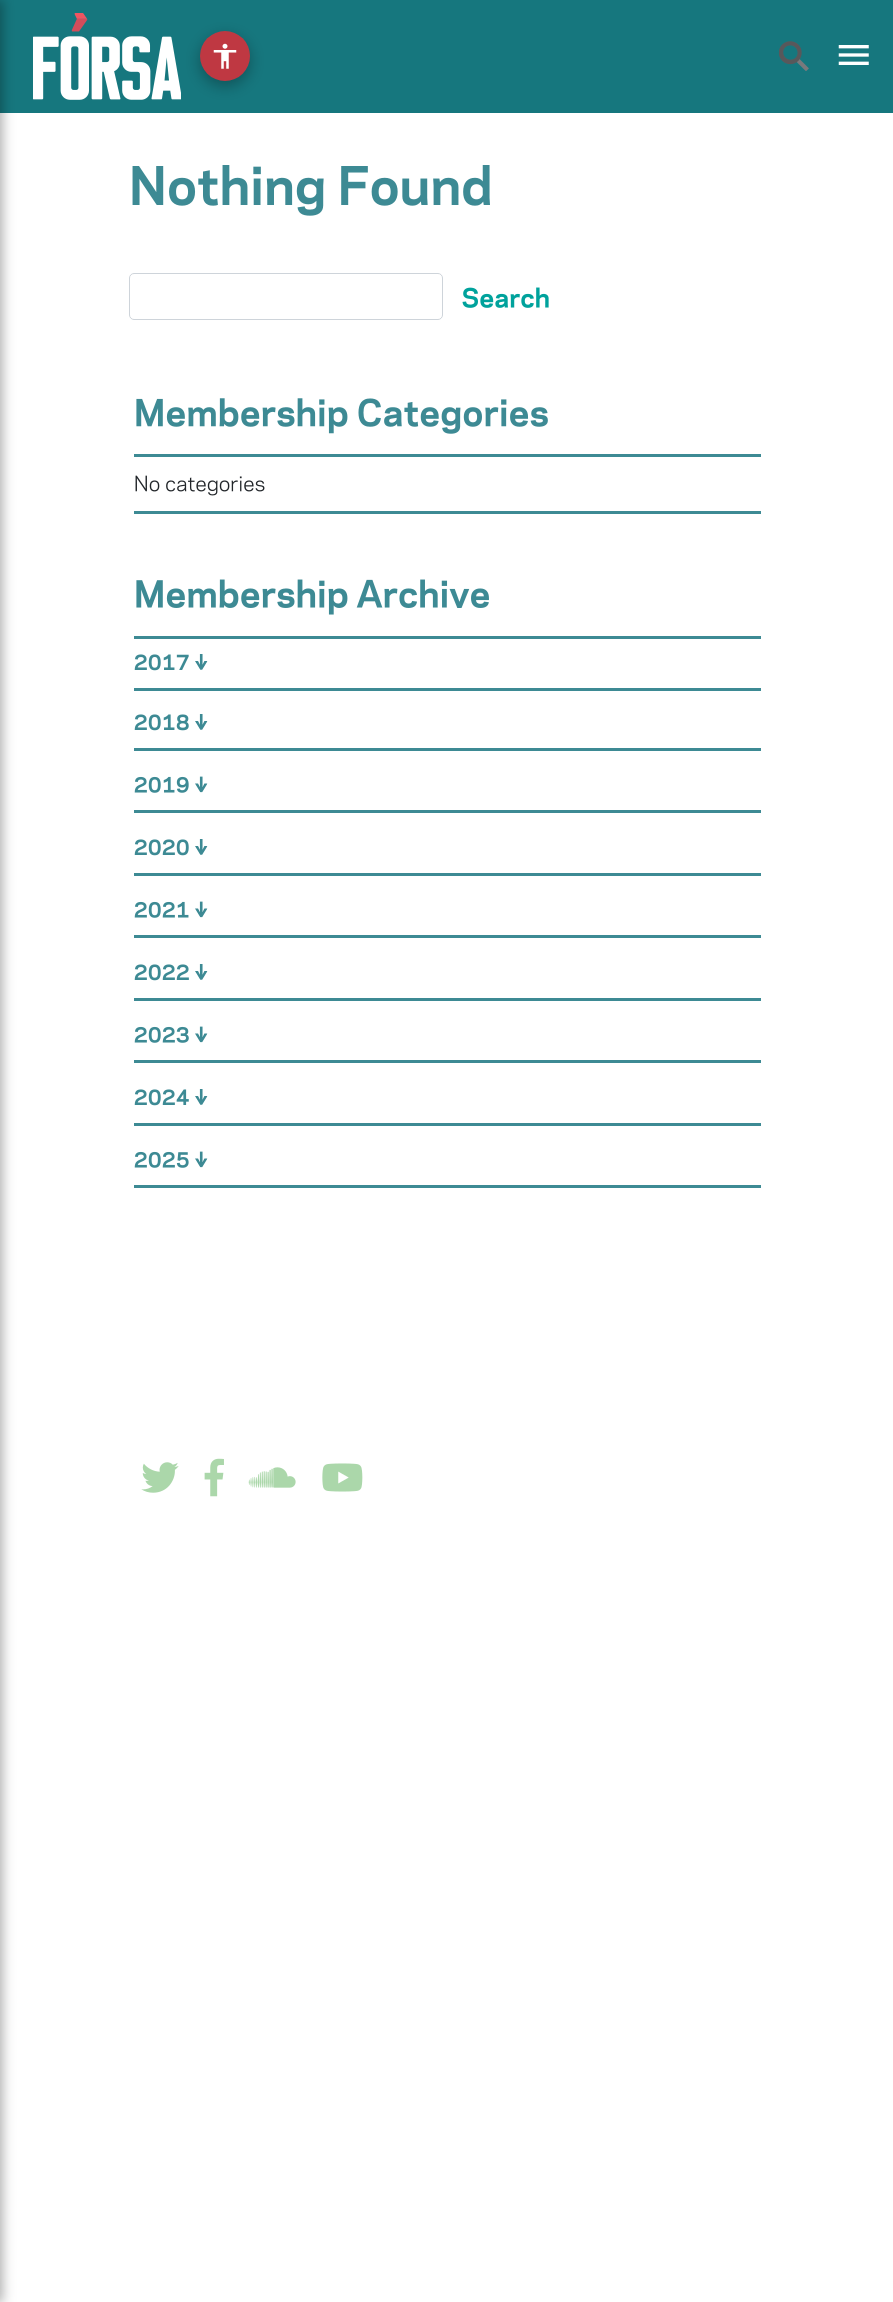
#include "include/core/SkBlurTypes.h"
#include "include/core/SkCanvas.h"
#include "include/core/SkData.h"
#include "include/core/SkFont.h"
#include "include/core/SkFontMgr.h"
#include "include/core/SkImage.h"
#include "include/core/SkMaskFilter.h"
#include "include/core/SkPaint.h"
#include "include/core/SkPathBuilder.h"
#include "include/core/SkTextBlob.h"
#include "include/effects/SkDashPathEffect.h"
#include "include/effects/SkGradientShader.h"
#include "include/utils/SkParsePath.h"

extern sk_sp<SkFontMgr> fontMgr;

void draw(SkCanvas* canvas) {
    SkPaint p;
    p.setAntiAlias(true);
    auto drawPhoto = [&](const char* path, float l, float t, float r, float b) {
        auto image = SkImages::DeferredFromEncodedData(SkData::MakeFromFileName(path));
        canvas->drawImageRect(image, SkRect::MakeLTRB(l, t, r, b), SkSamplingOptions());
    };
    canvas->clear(0xFFFFFFFF);
    p.setColor(0xFF16777E);
    canvas->drawRect(SkRect::MakeLTRB(0, 0, 893, 113), p);
    drawPhoto("media/1.png", 33, 13, 181, 100);
    drawPhoto("media/2.png", 779, 41, 809, 71);
    drawPhoto("media/3.png", 838, 45, 869, 65);
    drawPhoto("media/4.png", 132, 165, 490, 216);
    p.setStyle(SkPaint::kStroke_Style);
    p.setStrokeWidth(1);
    p.setColor(0xFFCED4DA);
    canvas->drawRoundRect(SkRect::MakeLTRB(129.5f, 273.5f, 442.5f, 319.5f), 4.5f, 4.5f, p);
    drawPhoto("media/5.png", 462, 287, 549, 308);
    drawPhoto("media/6.png", 136, 398, 548, 434);
    p.setStyle(SkPaint::kFill_Style);
    p.setColor(0xFF3D8A94);
    canvas->drawRect(SkRect::MakeLTRB(134, 454, 761, 457), p);
    canvas->drawRect(SkRect::MakeLTRB(134, 511, 761, 514), p);
    drawPhoto("media/7.png", 135, 475, 265, 496);
    drawPhoto("media/8.png", 136, 579, 489, 615);
    canvas->drawRect(SkRect::MakeLTRB(134, 636, 761, 639), p);
    canvas->drawRect(SkRect::MakeLTRB(134, 688, 761, 691), p);
    drawPhoto("media/9.png", 134, 654, 189, 671);
    drawPhoto("media/10.png", 195, 654, 208, 670);
    canvas->drawRect(SkRect::MakeLTRB(134, 748, 761, 751), p);
    drawPhoto("media/11.png", 134, 714, 189, 731);
    drawPhoto("media/10.png", 195, 714, 208, 730);
    canvas->drawRect(SkRect::MakeLTRB(134, 810, 761, 813), p);
    drawPhoto("media/12.png", 134, 776, 189, 793);
    drawPhoto("media/13.png", 195, 776, 208, 793);
    canvas->drawRect(SkRect::MakeLTRB(134, 873, 761, 876), p);
    drawPhoto("media/14.png", 134, 839, 189, 856);
    drawPhoto("media/10.png", 195, 839, 208, 855);
    canvas->drawRect(SkRect::MakeLTRB(134, 935, 761, 938), p);
    drawPhoto("media/15.png", 134, 901, 189, 918);
    drawPhoto("media/13.png", 195, 901, 208, 918);
    canvas->drawRect(SkRect::MakeLTRB(134, 998, 761, 1001), p);
    drawPhoto("media/16.png", 134, 964, 189, 981);
    drawPhoto("media/10.png", 195, 964, 208, 980);
    canvas->drawRect(SkRect::MakeLTRB(134, 1060, 761, 1063), p);
    drawPhoto("media/17.png", 134, 1026, 189, 1043);
    drawPhoto("media/13.png", 195, 1026, 208, 1043);
    canvas->drawRect(SkRect::MakeLTRB(134, 1123, 761, 1126), p);
    drawPhoto("media/18.png", 134, 1089, 189, 1106);
    drawPhoto("media/10.png", 195, 1089, 208, 1105);
    canvas->drawRect(SkRect::MakeLTRB(134, 1185, 761, 1188), p);
    drawPhoto("media/19.png", 134, 1151, 189, 1168);
    drawPhoto("media/13.png", 195, 1151, 208, 1168);
    p.setColor(0x4D000000);
    p.setMaskFilter(SkMaskFilter::MakeBlur(kNormal_SkBlurStyle, 6));
    canvas->drawRect(SkRect::MakeLTRB(-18, 0, 3, 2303), p);
    p.setMaskFilter(nullptr);
    p.setMaskFilter(SkMaskFilter::MakeBlur(kNormal_SkBlurStyle, 7.5f));
    canvas->drawRoundRect(SkRect::MakeLTRB(200, 36, 250, 86), 25, 25, p);
    p.setMaskFilter(nullptr);
    p.setColor(0xFFBF3842);
    canvas->drawCircle(225, 56, 25, p);
    drawPhoto("media/20.png", 213, 43, 237, 69);
    drawPhoto("media/21.png", 141, 1462, 179, 1493);
    drawPhoto("media/22.png", 204, 1458, 224, 1497);
    drawPhoto("media/23.png", 248, 1467, 296, 1488);
    drawPhoto("media/24.png", 322, 1463, 363, 1492);
}
